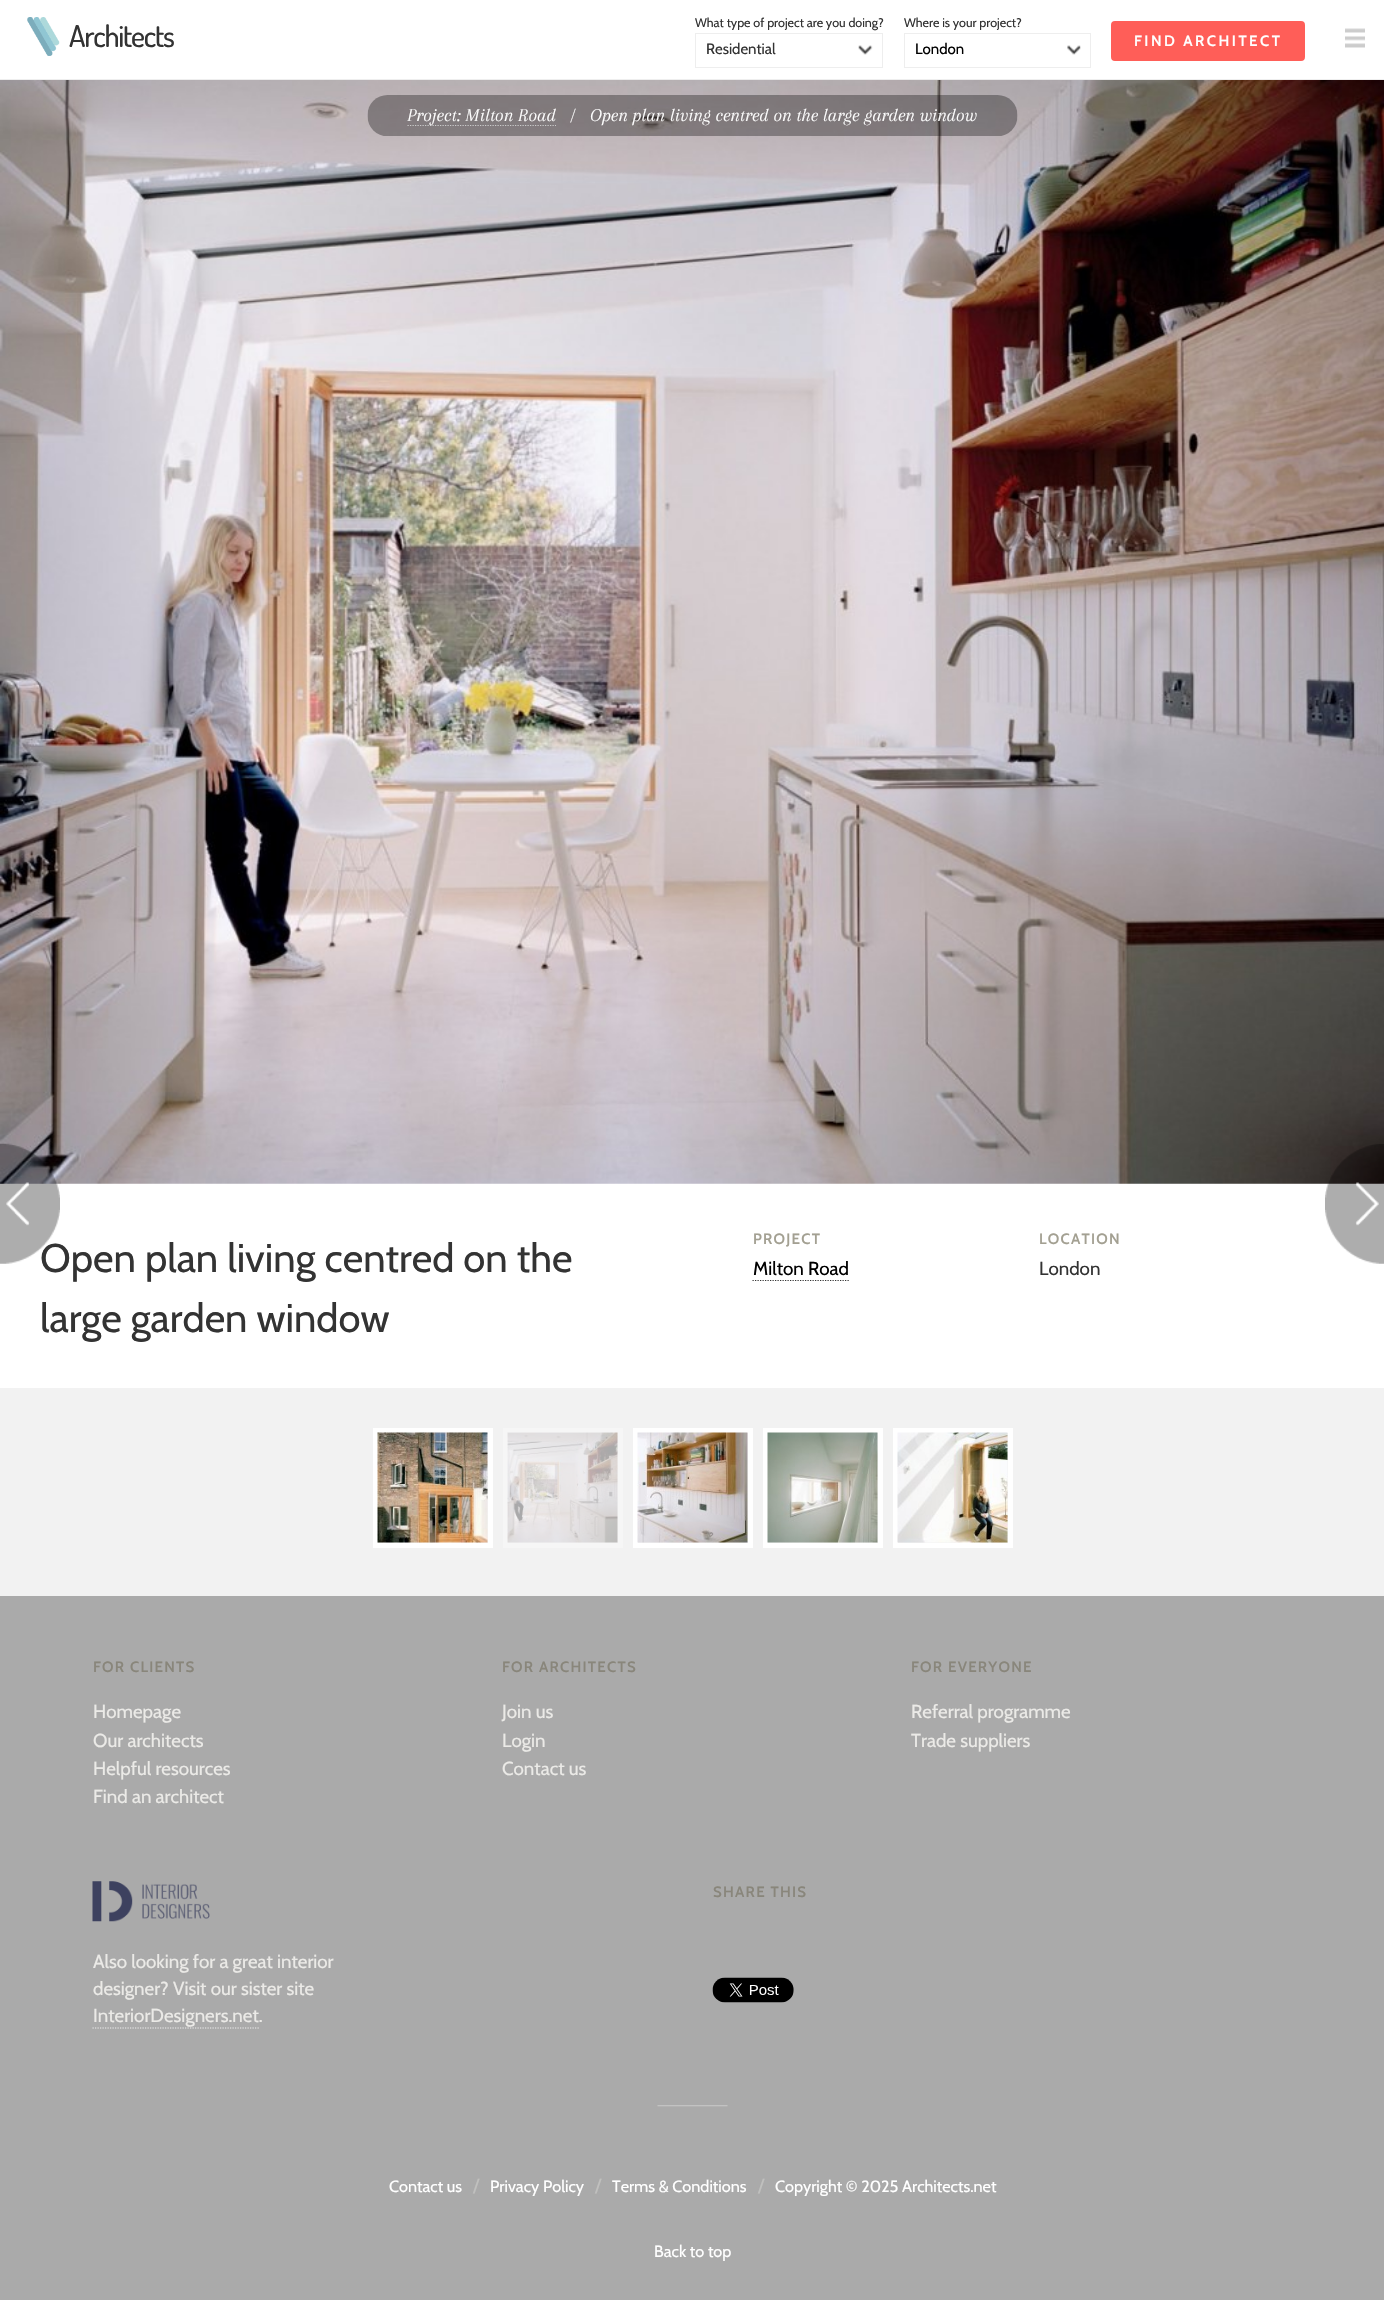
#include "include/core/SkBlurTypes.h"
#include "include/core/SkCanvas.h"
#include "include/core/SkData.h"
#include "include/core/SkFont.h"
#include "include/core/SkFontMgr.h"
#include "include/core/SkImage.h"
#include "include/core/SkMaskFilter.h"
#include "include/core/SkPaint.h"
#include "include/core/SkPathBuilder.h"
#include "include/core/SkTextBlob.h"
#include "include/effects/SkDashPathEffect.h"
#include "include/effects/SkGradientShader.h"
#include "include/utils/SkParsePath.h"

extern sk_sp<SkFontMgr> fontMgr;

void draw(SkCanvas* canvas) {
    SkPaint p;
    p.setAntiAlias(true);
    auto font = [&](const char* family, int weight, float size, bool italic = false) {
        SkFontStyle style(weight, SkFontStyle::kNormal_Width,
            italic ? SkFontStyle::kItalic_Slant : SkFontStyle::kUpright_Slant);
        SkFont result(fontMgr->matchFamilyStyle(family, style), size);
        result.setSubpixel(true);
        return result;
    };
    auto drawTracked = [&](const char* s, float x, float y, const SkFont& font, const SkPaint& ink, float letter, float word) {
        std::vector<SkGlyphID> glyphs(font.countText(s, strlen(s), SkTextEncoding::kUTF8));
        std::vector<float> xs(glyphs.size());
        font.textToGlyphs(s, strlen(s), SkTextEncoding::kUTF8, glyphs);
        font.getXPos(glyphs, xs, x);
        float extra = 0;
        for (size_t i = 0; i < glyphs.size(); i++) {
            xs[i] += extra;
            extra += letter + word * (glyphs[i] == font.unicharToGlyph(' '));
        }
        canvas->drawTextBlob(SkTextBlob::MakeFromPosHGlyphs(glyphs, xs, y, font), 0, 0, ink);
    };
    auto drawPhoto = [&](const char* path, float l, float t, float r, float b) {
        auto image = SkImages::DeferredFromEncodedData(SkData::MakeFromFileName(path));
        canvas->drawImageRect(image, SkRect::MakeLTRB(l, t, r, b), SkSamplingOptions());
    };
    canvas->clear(0xFFAAAAAA);
    p.setColor(0xFFFFFFFF);
    canvas->drawRect(SkRect::MakeLTRB(0, 0, 1384, 79), p);
    p.setColor(0xFFEEEEEE);
    canvas->drawRect(SkRect::MakeLTRB(0, 79, 1384, 80), p);
    drawPhoto("media/1.png", 27, 17, 60, 56);
    auto font1 = font("Dosis", 500, 30);
    p.setColor(0xFF333333);
    drawTracked("Architects", 69, 47, font1, p, -1.25f, 0);
    auto font2 = font("Cabin", 400, 12.5f);
    canvas->drawString("What type of project are you doing?", 695, 27, font2, p);
    drawPhoto("media/2.png", 858, 45, 873, 55);
    p.setStyle(SkPaint::kStroke_Style);
    p.setStrokeWidth(1);
    p.setColor(0xFFEEEEEE);
    canvas->drawRect(SkRect::MakeLTRB(695.5f, 33.5f, 882.5f, 67.5f), p);
    auto font3 = font("Cabin", 400, 15);
    p.setStyle(SkPaint::kFill_Style);
    p.setColor(0xFF333333);
    canvas->drawString("Residential", 706, 54, font3, p);
    canvas->drawString("Where is your project?", 904, 27, font2, p);
    drawPhoto("media/3.png", 1067, 45, 1081, 55);
    p.setStyle(SkPaint::kStroke_Style);
    p.setColor(0xFFEEEEEE);
    canvas->drawRect(SkRect::MakeLTRB(904.5f, 33.5f, 1090.5f, 67.5f), p);
    p.setStyle(SkPaint::kFill_Style);
    p.setColor(0xFF000000);
    canvas->drawString("London", 915, 54, font3, p);
    p.setColor(0xFFFF5E58);
    canvas->drawRoundRect(SkRect::MakeLTRB(1112.5f, 22.5f, 1303.5f, 59.5f), 2.5f, 2.5f, p);
    p.setStyle(SkPaint::kStroke_Style);
    p.setStrokeWidth(3);
    canvas->drawRoundRect(SkRect::MakeLTRB(1112.5f, 22.5f, 1303.5f, 59.5f), 2.5f, 2.5f, p);
    auto font4 = font("Cabin", 600, 15);
    p.setStyle(SkPaint::kFill_Style);
    p.setColor(0xFFFFFFFF);
    drawTracked("FIND ARCHITECT", 1134, 46, font4, p, 2.5f, 0);
    drawPhoto("media/4.png", 1345, 28, 1365, 48);
    p.setColor(0xFFF2F2F2);
    canvas->drawRect(SkRect::MakeLTRB(0, 1388, 1384, 1596), p);
    p.setColor(0xFFFFFFFF);
    canvas->drawRect(SkRect::MakeLTRB(0, 1183, 1384, 1388), p);
    drawPhoto("media/5.png", 0, 80, 1384, 1184);
    drawPhoto("media/6.png", 367, 95, 1018, 136);
    p.setStyle(SkPaint::kStroke_Style);
    p.setStrokeWidth(1.2f);
    p.setColor(0xFFCCCCCC);
    p.setPathEffect(SkDashPathEffect::Make({{1.25f, 1.25f}}, 0));
    canvas->drawPath(SkPathBuilder().moveTo(407.5f, 125.5f).lineTo(556, 125.5f).detach(), p);
    p.setPathEffect(nullptr);
    auto font5 = font("Arapey", 400, 18.75f, true);
    p.setStyle(SkPaint::kFill_Style);
    p.setColor(0xFFFFFFFF);
    {
        const struct { const char* s; float x, y; } items[] = {
            {"Project: Milton Road", 407, 121},
            {"/", 570, 121},
            {"Open plan living centred on the large garden window", 590, 121},
        };
        for (auto [s, x, y] : items) {
            canvas->drawString(s, x, y, font5, p);
        }
    }
    auto font6 = font("Cabin", 400, 40);
    p.setColor(0xFF333333);
    canvas->drawString("Open plan living centred on the", 40, 1272, font6, p);
    drawPhoto("media/7.png", 0, 1143, 60, 1264);
    drawPhoto("media/8.png", 1325, 1144, 1384, 1264);
    canvas->drawString("large garden window", 40, 1332, font6, p);
    p.setColor(0xFFA3A092);
    drawTracked("PROJECT", 753, 1244, font4, p, 1.25f, 0);
    auto font7 = font("Cabin", 400, 18.75f);
    p.setColor(0xFF000000);
    canvas->drawString("Milton Road", 753, 1275, font7, p);
    p.setStyle(SkPaint::kStroke_Style);
    p.setColor(0xFF333333);
    p.setPathEffect(SkDashPathEffect::Make({{1.25f, 1.25f}}, 0));
    canvas->drawPath(SkPathBuilder().moveTo(752.5f, 1280.5f).lineTo(849, 1280.5f).detach(), p);
    p.setPathEffect(nullptr);
    p.setStyle(SkPaint::kFill_Style);
    p.setColor(0xFFA3A092);
    drawTracked("LOCATION", 1039, 1244, font4, p, 1.25f, 0);
    p.setColor(0xFF333333);
    canvas->drawString("London", 1039, 1275, font7, p);
    p.setStyle(SkPaint::kStroke_Style);
    p.setStrokeWidth(5);
    p.setColor(0xFFFFFFFF);
    canvas->drawRect(SkRect::MakeLTRB(375.5f, 1430.5f, 490.5f, 1545.5f), p);
    p.setColor(0xFFF6F6F6);
    canvas->drawRect(SkRect::MakeLTRB(505.5f, 1430.5f, 620.5f, 1545.5f), p);
    p.setColor(0xFFFFFFFF);
    canvas->drawRect(SkRect::MakeLTRB(635.5f, 1430.5f, 750.5f, 1545.5f), p);
    canvas->drawRect(SkRect::MakeLTRB(765.5f, 1430.5f, 880.5f, 1545.5f), p);
    canvas->drawRect(SkRect::MakeLTRB(895.5f, 1430.5f, 1010.5f, 1545.5f), p);
    drawPhoto("media/9.png", 377, 1432, 488, 1543);
    drawPhoto("media/10.png", 507, 1432, 618, 1543);
    drawPhoto("media/11.png", 637, 1432, 748, 1543);
    drawPhoto("media/12.png", 767, 1432, 878, 1543);
    drawPhoto("media/13.png", 897, 1432, 1008, 1543);
    p.setStyle(SkPaint::kFill_Style);
    p.setColor(0xFF89867B);
    drawTracked("FOR CLIENTS", 93, 1672, font4, p, 1.25f, 0);
    p.setColor(0xFFEBEAE7);
    {
        const struct { const char* s; float x, y; } items[] = {
            {"Homepage", 93, 1718},
            {"Our architects", 93, 1747},
            {"Helpful resources", 93, 1775},
            {"Find an architect", 93, 1803},
        };
        for (auto [s, x, y] : items) {
            canvas->drawString(s, x, y, font7, p);
        }
    }
    p.setColor(0xFF89867B);
    drawTracked("FOR ARCHITECTS", 502, 1672, font4, p, 1.25f, 0);
    p.setColor(0xFFEBEAE7);
    {
        const struct { const char* s; float x, y; } items[] = {
            {"Join us", 502, 1718},
            {"Login", 502, 1747},
            {"Contact us", 502, 1775},
        };
        for (auto [s, x, y] : items) {
            canvas->drawString(s, x, y, font7, p);
        }
    }
    p.setColor(0xFF89867B);
    drawTracked("FOR EVERYONE", 911, 1672, font4, p, 1.25f, 0);
    p.setColor(0xFFEBEAE7);
    canvas->drawString("Referral programme", 911, 1718, font7, p);
    canvas->drawString("Trade suppliers", 911, 1747, font7, p);
    p.setColor(0xFF89867B);
    drawTracked("SHARE THIS", 713, 1897, font4, p, 1.25f, 0);
    drawPhoto("media/14.png", 712, 1977, 794, 2003);
    drawPhoto("media/15.png", 92, 1881, 210, 1922);
    p.setColor(0xFFEBEAE7);
    {
        const struct { const char* s; float x, y; } items[] = {
            {"Also looking for a great interior", 93, 1968},
            {"designer? Visit our sister site", 93, 1995},
            {"InteriorDesigners.net.", 93, 2022},
        };
        for (auto [s, x, y] : items) {
            canvas->drawString(s, x, y, font7, p);
        }
    }
    p.setStyle(SkPaint::kStroke_Style);
    p.setStrokeWidth(1.2f);
    p.setColor(0xFFEEEEEE);
    p.setPathEffect(SkDashPathEffect::Make({{1.25f, 1.25f}}, 0));
    canvas->drawPath(SkPathBuilder().moveTo(92.5f, 2028).lineTo(259, 2028).detach(), p);
    p.setPathEffect(nullptr);
    drawPhoto("media/16.png", 657, 2105, 728, 2107);
    auto font8 = font("Cabin", 400, 16.25f);
    p.setStyle(SkPaint::kFill_Style);
    p.setColor(0xFFFFFFFF);
    canvas->drawString("Contact us", 389, 2192, font8, p);
    p.setColor(0xFFC0C0BE);
    canvas->drawString("/", 473, 2192, font7, p);
    p.setColor(0xFFFFFFFF);
    canvas->drawString("Privacy Policy", 490, 2192, font8, p);
    p.setColor(0xFFC0C0BE);
    canvas->drawString("/", 595, 2192, font7, p);
    p.setColor(0xFFFFFFFF);
    canvas->drawString("Terms & Conditions", 612, 2192, font8, p);
    p.setColor(0xFFC0C0BE);
    canvas->drawString("/", 758, 2192, font7, p);
    p.setColor(0xFFFFFFFF);
    canvas->drawString("Copyright © 2025 Architects.net", 775, 2192, font8, p);
    canvas->drawString("Back to top", 654, 2257, font8, p);
}
